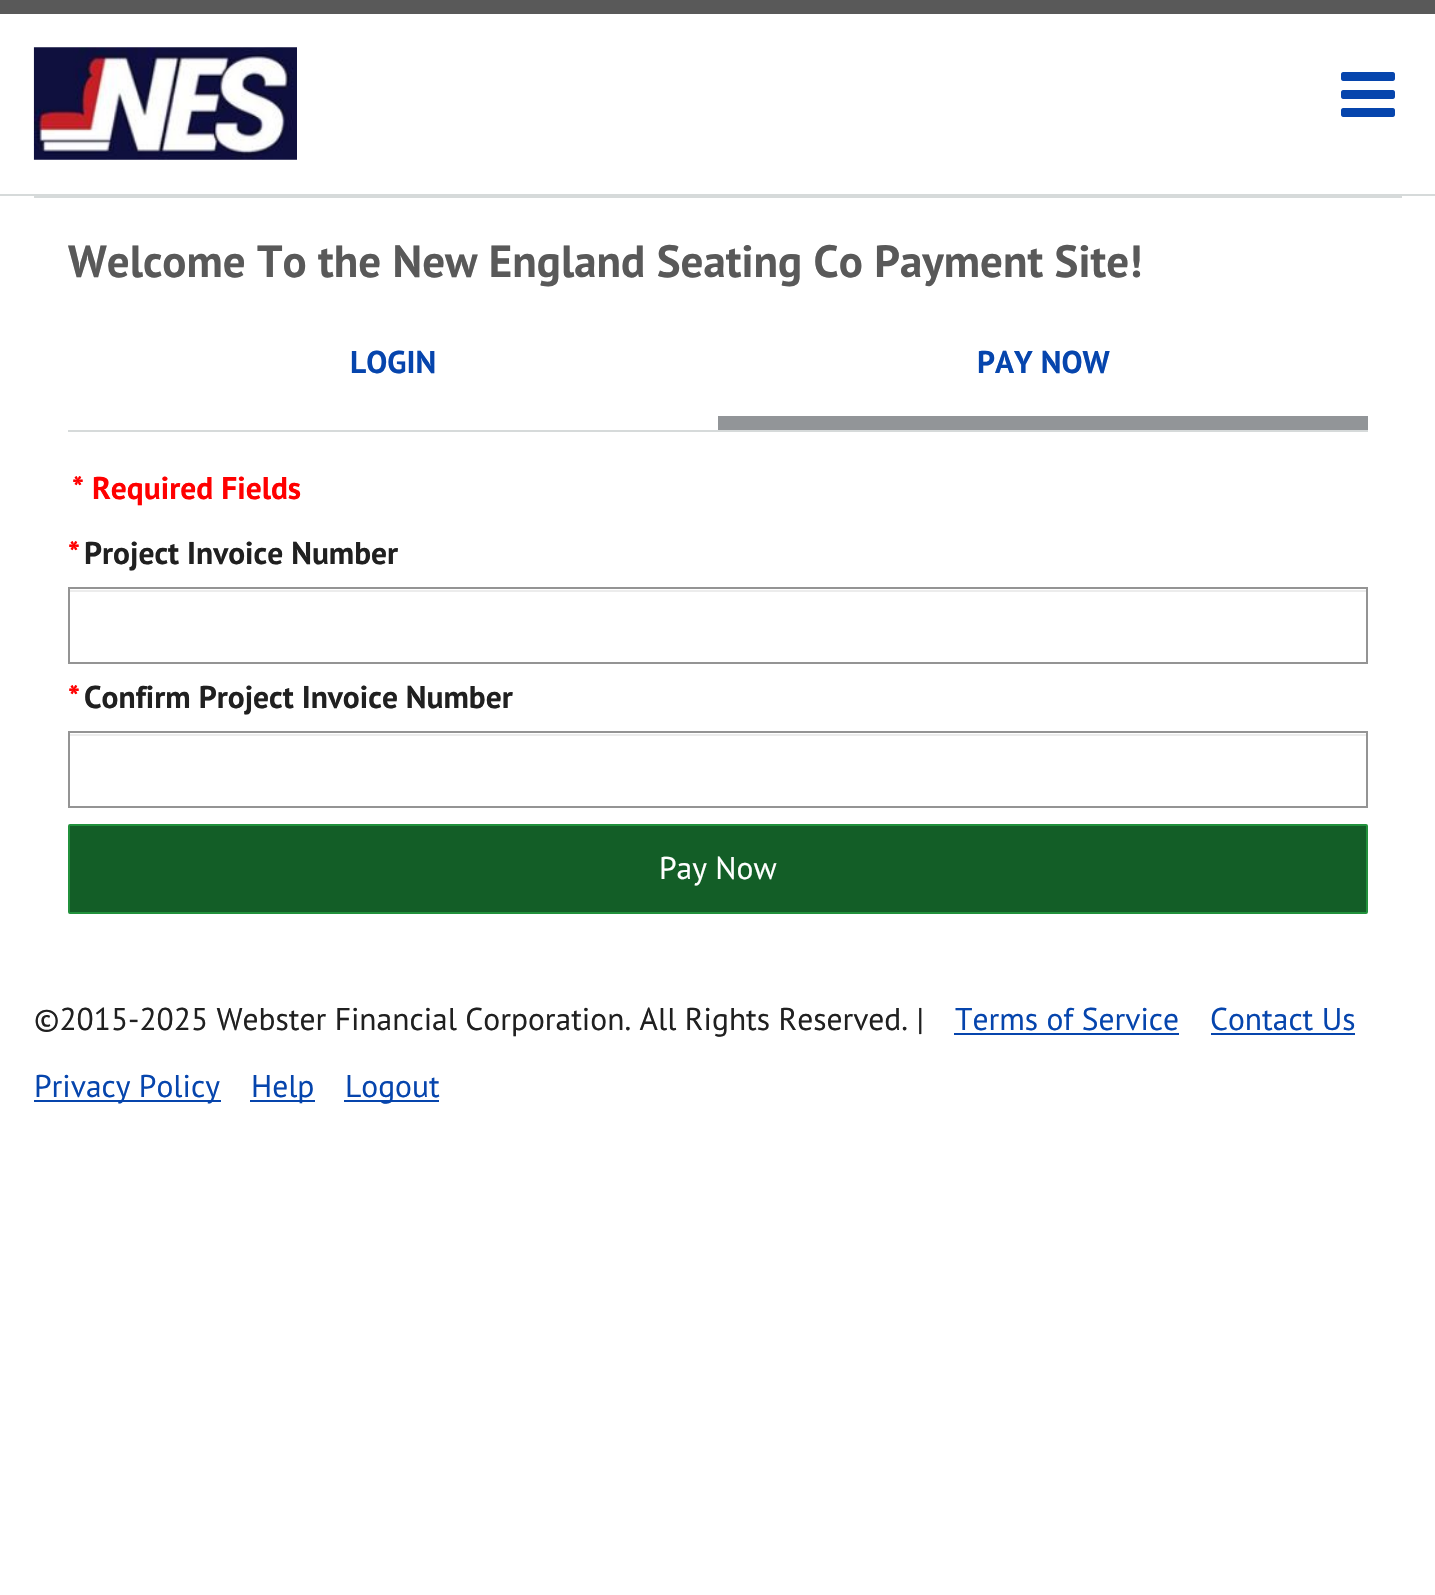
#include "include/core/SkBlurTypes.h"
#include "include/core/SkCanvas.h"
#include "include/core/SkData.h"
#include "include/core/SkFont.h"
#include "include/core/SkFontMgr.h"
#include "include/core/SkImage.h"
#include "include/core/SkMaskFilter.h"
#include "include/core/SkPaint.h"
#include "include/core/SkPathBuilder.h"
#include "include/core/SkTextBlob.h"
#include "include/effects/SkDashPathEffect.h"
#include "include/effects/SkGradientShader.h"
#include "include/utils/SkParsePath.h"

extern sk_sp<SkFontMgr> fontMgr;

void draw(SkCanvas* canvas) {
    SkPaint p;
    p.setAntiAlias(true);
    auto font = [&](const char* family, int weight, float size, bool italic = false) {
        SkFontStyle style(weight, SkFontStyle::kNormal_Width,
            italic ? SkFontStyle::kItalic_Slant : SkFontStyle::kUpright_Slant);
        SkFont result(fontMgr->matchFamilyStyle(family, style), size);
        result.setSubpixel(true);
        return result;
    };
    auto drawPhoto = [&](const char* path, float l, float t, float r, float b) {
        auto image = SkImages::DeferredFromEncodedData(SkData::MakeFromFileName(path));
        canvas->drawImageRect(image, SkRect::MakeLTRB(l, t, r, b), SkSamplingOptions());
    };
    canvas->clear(0xFFFFFFFF);
    p.setColor(0xFF595959);
    canvas->drawRect(SkRect::MakeLTRB(0, 0, 1435, 14), p);
    drawPhoto("media/1.png", 33, 47, 297, 160);
    drawPhoto("media/2.png", 1341, 72, 1395, 117);
    p.setColor(0xFFD6DADA);
    canvas->drawRect(SkRect::MakeLTRB(0, 194, 1435, 196), p);
    canvas->drawRect(SkRect::MakeLTRB(34, 196, 1402, 198), p);
    auto font1 = font("PT Sans", 700, 45);
    p.setColor(0xFF595959);
    canvas->drawString("Welcome To the New England Seating Co Payment Site!", 68, 277, font1, p);
    p.setColor(0xFFD6DADA);
    canvas->drawRect(SkRect::MakeLTRB(68, 430, 1368, 432), p);
    auto font2 = font("PT Sans", 700, 31.5f);
    p.setColor(0xFF0645AD);
    canvas->drawString("LOGIN", 350, 373, font2, p);
    p.setColor(0xFF929598);
    canvas->drawRect(SkRect::MakeLTRB(718, 416, 1368, 430), p);
    p.setColor(0xFF0645AD);
    canvas->drawString("PAY NOW", 977, 373, font2, p);
    p.setColor(0xFFFF0000);
    canvas->drawString("* Required Fields", 72, 499, font2, p);
    canvas->drawString("*", 68, 564, font2, p);
    p.setColor(0xFF202020);
    canvas->drawString("Project Invoice Number", 84, 564, font2, p);
    p.setColor(0xFFECECEC);
    canvas->drawRect(SkRect::MakeLTRB(70, 590, 1366, 592), p);
    p.setStyle(SkPaint::kStroke_Style);
    p.setStrokeWidth(2);
    p.setColor(0xFF949494);
    canvas->drawRect(SkRect::MakeLTRB(69, 588, 1367, 663), p);
    p.setStyle(SkPaint::kFill_Style);
    p.setColor(0xFFFF0000);
    canvas->drawString("*", 68, 708, font2, p);
    p.setColor(0xFF202020);
    canvas->drawString("Confirm Project Invoice Number", 84, 708, font2, p);
    p.setColor(0xFFECECEC);
    canvas->drawRect(SkRect::MakeLTRB(70, 734, 1366, 736), p);
    p.setStyle(SkPaint::kStroke_Style);
    p.setColor(0xFF949494);
    canvas->drawRect(SkRect::MakeLTRB(69, 732, 1367, 807), p);
    p.setStyle(SkPaint::kFill_Style);
    p.setColor(0xFF135E27);
    canvas->drawRoundRect(SkRect::MakeLTRB(69, 825, 1367, 913), 1, 1, p);
    p.setStyle(SkPaint::kStroke_Style);
    p.setColor(0xFF21913C);
    canvas->drawRoundRect(SkRect::MakeLTRB(69, 825, 1367, 913), 1, 1, p);
    auto font3 = font("PT Sans", 400, 31.5f);
    p.setStyle(SkPaint::kFill_Style);
    p.setColor(0xFFFFFFFF);
    canvas->drawString("Pay Now", 659, 879, font3, p);
    p.setColor(0xFF202020);
    canvas->drawString("©2015-2025 Webster Financial Corporation. All Rights Reserved. |", 34, 1030, font3, p);
    p.setColor(0xFF0645AD);
    canvas->drawString("Terms of Service", 955, 1030, font3, p);
    canvas->drawRect(SkRect::MakeLTRB(954, 1033, 1179, 1035), p);
    canvas->drawString("Contact Us", 1210, 1030, font3, p);
    canvas->drawRect(SkRect::MakeLTRB(1211, 1033, 1355, 1035), p);
    canvas->drawRect(SkRect::MakeLTRB(34, 1100, 221, 1102), p);
    canvas->drawString("Privacy Policy", 34, 1097, font3, p);
    canvas->drawRect(SkRect::MakeLTRB(250, 1100, 315, 1102), p);
    canvas->drawString("Help", 251, 1097, font3, p);
    canvas->drawRect(SkRect::MakeLTRB(344, 1100, 439, 1102), p);
    canvas->drawString("Logout", 345, 1097, font3, p);
}
